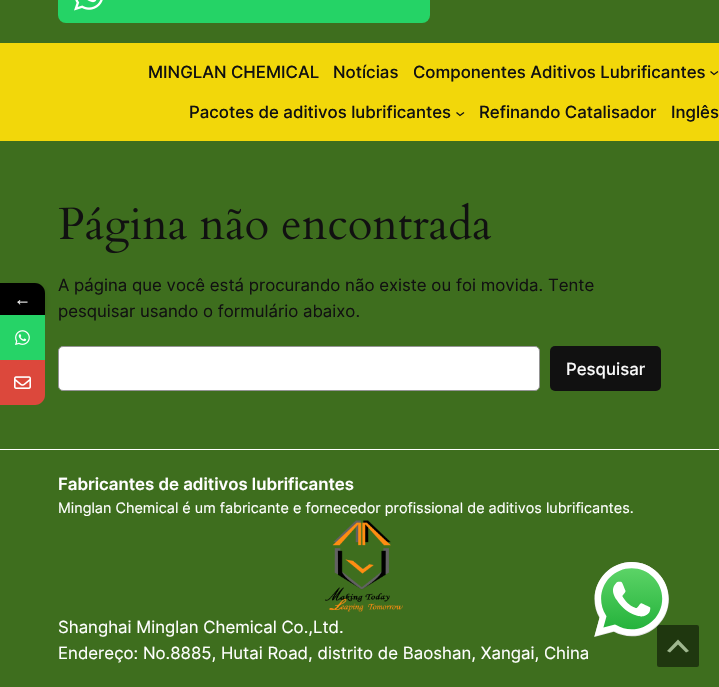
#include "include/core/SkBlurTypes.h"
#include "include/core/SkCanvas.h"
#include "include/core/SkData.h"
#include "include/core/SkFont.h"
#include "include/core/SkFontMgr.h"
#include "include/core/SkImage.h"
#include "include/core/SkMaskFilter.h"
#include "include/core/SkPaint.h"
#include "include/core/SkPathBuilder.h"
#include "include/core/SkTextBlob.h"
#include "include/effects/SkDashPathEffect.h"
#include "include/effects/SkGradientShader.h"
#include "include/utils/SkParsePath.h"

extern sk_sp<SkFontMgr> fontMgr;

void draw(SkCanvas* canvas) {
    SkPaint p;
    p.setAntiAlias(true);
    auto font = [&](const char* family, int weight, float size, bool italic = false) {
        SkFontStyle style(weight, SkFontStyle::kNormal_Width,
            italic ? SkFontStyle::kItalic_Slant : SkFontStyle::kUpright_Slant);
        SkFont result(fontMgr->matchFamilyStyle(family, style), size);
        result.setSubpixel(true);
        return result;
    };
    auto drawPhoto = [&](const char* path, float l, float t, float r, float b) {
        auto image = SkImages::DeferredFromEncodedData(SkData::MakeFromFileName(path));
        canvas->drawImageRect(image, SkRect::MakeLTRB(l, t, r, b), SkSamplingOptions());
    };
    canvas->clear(0xFF3E6E1E);
    p.setColor(0x29000000);
    p.setMaskFilter(SkMaskFilter::MakeBlur(kNormal_SkBlurStyle, 3));
    canvas->drawRoundRect(SkRect::MakeLTRB(0, 286, 45, 318), 10, 10, p);
    p.setMaskFilter(nullptr);
    p.setColor(0xFF000000);
    canvas->drawPath(SkPathBuilder().moveTo(0, 283).lineTo(35, 283).cubicTo(40.5f, 283, 45, 287.5f, 45, 293).lineTo(45, 315).lineTo(0, 315).close().detach(), p);
    auto font1 = font("Liberation Serif", 400, 16.8f);
    p.setColor(0xFFFFFFFF);
    canvas->drawString("←", 14, 305, font1, p);
    p.setColor(0xFF26D367);
    canvas->drawRect(SkRect::MakeLTRB(0, 315, 45, 360), p);
    drawPhoto("media/1.png", 15, 330, 30, 345);
    p.setColor(0xFFDC483C);
    canvas->drawPath(SkPathBuilder().moveTo(0, 360).lineTo(45, 360).lineTo(45, 395).cubicTo(45, 400.5f, 40.5f, 405, 35, 405).lineTo(0, 405).close().detach(), p);
    drawPhoto("media/2.png", 14, 376, 31, 389);
    p.setColor(0xFF25D366);
    canvas->drawRoundRect(SkRect::MakeLTRB(58, -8, 430, 23), 8, 8, p);
    drawPhoto("media/3.png", 74, 0, 103, 11);
    p.setColor(0xFFF2D70A);
    canvas->drawRect(SkRect::MakeLTRB(0, 43, 719, 141), p);
    auto font2 = font("Inter", 500, 16.8f);
    p.setColor(0xFF111111);
    {
        const struct { const char* s; float x, y; } items[] = {
            {"MINGLAN CHEMICAL", 148, 78},
            {"Notícias", 333, 78},
            {"Componentes Aditivos Lubrificantes", 413, 78},
        };
        for (auto [s, x, y] : items) {
            canvas->drawString(s, x, y, font2, p);
        }
    }
    p.setStyle(SkPaint::kStroke_Style);
    p.setStrokeWidth(1.3f);
    canvas->drawPath(SkPathBuilder().moveTo(710.5f, 71.5f).lineTo(714, 74.5f).lineTo(718, 71.5f).detach(), p);
    p.setStyle(SkPaint::kFill_Style);
    canvas->drawString("Pacotes de aditivos lubrificantes", 189, 118, font2, p);
    p.setStyle(SkPaint::kStroke_Style);
    canvas->drawPath(SkPathBuilder().moveTo(456.5f, 112.5f).lineTo(460, 115.5f).lineTo(464, 112.5f).detach(), p);
    p.setStyle(SkPaint::kFill_Style);
    canvas->drawString("Refinando Catalisador", 479, 118, font2, p);
    canvas->drawString("Inglês", 671, 118, font2, p);
    drawPhoto("media/4.png", 58, 202, 492, 254);
    auto font3 = font("Inter", 400, 16.8f);
    canvas->drawString("A página que você está procurando não existe ou foi movida. Tente", 58, 291, font3, p);
    canvas->drawString("pesquisar usando o formulário abaixo.", 58, 317, font3, p);
    p.setColor(0xFFFFFFFF);
    canvas->drawRoundRect(SkRect::MakeLTRB(58.5f, 346.5f, 539.5f, 390.5f), 4.5f, 4.5f, p);
    p.setStyle(SkPaint::kStroke_Style);
    p.setStrokeWidth(1);
    p.setColor(0xFF949494);
    canvas->drawRoundRect(SkRect::MakeLTRB(58.5f, 346.5f, 539.5f, 390.5f), 4.5f, 4.5f, p);
    p.setStyle(SkPaint::kFill_Style);
    p.setColor(0xFF111111);
    canvas->drawRoundRect(SkRect::MakeLTRB(550, 346, 661, 391), 5, 5, p);
    p.setColor(0xFFF9F9F9);
    canvas->drawString("Pesquisar", 566, 375, font2, p);
    p.setColor(0xFFFFFFFF);
    canvas->drawRect(SkRect::MakeLTRB(0, 449, 719, 450), p);
    auto font4 = font("Inter", 600, 16.8f);
    canvas->drawString("Fabricantes de aditivos lubrificantes", 58, 490, font4, p);
    auto font5 = font("Inter", 400, 14.4f);
    canvas->drawString("Minglan Chemical é um fabricante e fornecedor profissional de aditivos lubrificantes.", 58, 513, font5, p);
    drawPhoto("media/5.png", 325, 520, 403, 612);
    canvas->drawString("Shanghai Minglan Chemical Co.,Ltd.", 58, 633, font3, p);
    canvas->drawString("Endereço: No.8885, Hutai Road, distrito de Baoshan, Xangai, China", 58, 659, font3, p);
    p.setColor(0xFF1F370F);
    canvas->drawRoundRect(SkRect::MakeLTRB(657, 625, 699, 667), 2, 2, p);
    drawPhoto("media/6.png", 594, 562, 669, 637);
    p.setColor(0xFF9FB78F);
    canvas->drawPath(SkPathBuilder().moveTo(686, 652.5f).lineTo(678, 644.5f).lineTo(670, 652.5f).lineTo(667, 651).lineTo(678, 639.5f).lineTo(689, 651).close().detach(), p);
}
